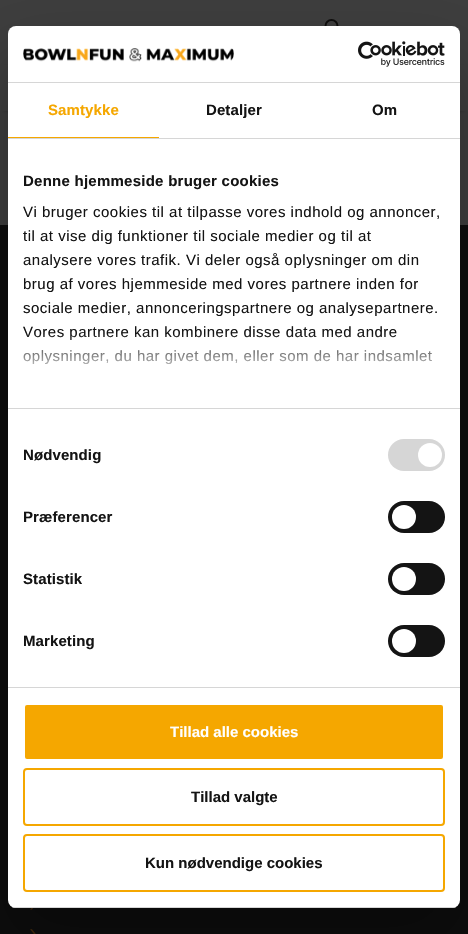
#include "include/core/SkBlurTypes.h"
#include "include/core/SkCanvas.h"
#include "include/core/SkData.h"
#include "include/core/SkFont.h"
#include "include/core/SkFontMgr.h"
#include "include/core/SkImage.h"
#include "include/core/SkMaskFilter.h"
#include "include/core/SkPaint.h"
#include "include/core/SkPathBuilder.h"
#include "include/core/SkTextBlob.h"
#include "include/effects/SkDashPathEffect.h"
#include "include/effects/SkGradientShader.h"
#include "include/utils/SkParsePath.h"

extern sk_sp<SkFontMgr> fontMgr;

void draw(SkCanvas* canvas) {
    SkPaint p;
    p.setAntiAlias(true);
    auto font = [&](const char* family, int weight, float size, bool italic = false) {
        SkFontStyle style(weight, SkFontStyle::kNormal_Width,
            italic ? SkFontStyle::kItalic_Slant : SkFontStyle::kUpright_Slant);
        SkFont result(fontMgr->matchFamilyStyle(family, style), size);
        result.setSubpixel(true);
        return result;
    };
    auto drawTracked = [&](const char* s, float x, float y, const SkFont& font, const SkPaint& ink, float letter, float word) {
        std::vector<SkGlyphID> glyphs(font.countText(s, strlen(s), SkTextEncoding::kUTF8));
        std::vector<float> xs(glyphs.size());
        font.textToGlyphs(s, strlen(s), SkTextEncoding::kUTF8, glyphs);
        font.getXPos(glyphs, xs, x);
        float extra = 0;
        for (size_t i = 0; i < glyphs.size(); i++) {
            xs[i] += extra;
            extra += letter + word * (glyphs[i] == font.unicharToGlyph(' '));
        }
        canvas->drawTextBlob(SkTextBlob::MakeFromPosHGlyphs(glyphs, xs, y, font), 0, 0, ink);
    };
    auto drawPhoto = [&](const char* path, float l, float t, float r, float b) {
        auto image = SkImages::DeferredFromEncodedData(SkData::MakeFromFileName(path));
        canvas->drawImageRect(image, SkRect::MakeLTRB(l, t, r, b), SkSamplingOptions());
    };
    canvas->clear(0xFF3E3E3E);
    p.setStyle(SkPaint::kStroke_Style);
    p.setStrokeWidth(2);
    p.setColor(0xFF0E0D0C);
    canvas->drawCircle(331.5f, 26, 6, p);
    p.setStyle(SkPaint::kFill_Style);
    p.setColor(0xFF000000);
    p.setMaskFilter(SkMaskFilter::MakeBlur(kNormal_SkBlurStyle, 3));
    canvas->drawRect(SkRect::MakeLTRB(5, 70, 463, 108), p);
    p.setMaskFilter(nullptr);
    p.setColor(0xFF3E3E3E);
    canvas->drawRect(SkRect::MakeLTRB(0, 65, 468, 111), p);
    p.setColor(0xFF0D0D0D);
    canvas->drawRect(SkRect::MakeLTRB(0, 225, 468, 934), p);
    drawPhoto("media/1.png", 30, 908, 33, 910);
    drawPhoto("media/2.png", 30, 929, 36, 934);
    p.setColor(0x4D000000);
    p.setMaskFilter(SkMaskFilter::MakeBlur(kNormal_SkBlurStyle, 34));
    canvas->drawRoundRect(SkRect::MakeLTRB(8, 58, 460, 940), 8, 8, p);
    p.setMaskFilter(nullptr);
    p.setColor(0xFFFFFFFF);
    canvas->drawRoundRect(SkRect::MakeLTRB(8, 26, 460, 908), 8, 8, p);
    p.setColor(0xFFD6D6D6);
    canvas->drawRect(SkRect::MakeLTRB(8, 82, 460, 83), p);
    drawPhoto("media/3.png", 23, 48, 234, 62);
    drawPhoto("media/4.png", 358, 41, 445, 67);
    canvas->drawRect(SkRect::MakeLTRB(8, 138, 460, 139), p);
    p.setColor(0xFFF5A700);
    canvas->drawRect(SkRect::MakeLTRB(8, 137, 159, 138), p);
    auto font1 = font("Liberation Sans", 700, 15);
    drawTracked("Samtykke", 48, 115, font1, p, 0.1f, 0);
    p.setColor(0xFF141414);
    drawTracked("Detaljer", 206, 115, font1, p, 0.1f, 0);
    drawTracked("Om", 372, 115, font1, p, 0.1f, 0);
    p.setColor(0xFFD6D6D6);
    canvas->drawRect(SkRect::MakeLTRB(8, 408, 460, 409), p);
    p.setColor(0xFF141414);
    drawTracked("Denne hjemmeside bruger cookies", 23, 186, font1, p, 0.25f, 0);
    auto font2 = font("Liberation Sans", 400, 15);
    {
        const struct { const char* s; float x, y; } items[] = {
            {"Vi bruger cookies til at tilpasse vores indhold og annoncer,", 23, 217},
            {"til at vise dig funktioner til sociale medier og til at", 23, 241},
            {"analysere vores trafik. Vi deler også oplysninger om din", 23, 265},
            {"brug af vores hjemmeside med vores partnere inden for", 23, 289},
            {"sociale medier, annonceringspartnere og analysepartnere.", 23, 313},
            {"Vores partnere kan kombinere disse data med andre", 23, 337},
            {"oplysninger, du har givet dem, eller som de har indsamlet", 23, 361},
        };
        for (auto [s, x, y] : items) {
            drawTracked(s, x, y, font2, p, 0.5f, 0);
        }
    }
    {
        const SkColor colors[] = {0xFFFFFFFF, 0xCCFFFFFF, 0x00FFFFFF};
        const float stops[] = {0, 0.5f, 1};
        const SkPoint ends[] = {{228, 408}, {228, 333}};
        p.setShader(SkGradientShader::MakeLinear(ends, colors, stops, 3, SkTileMode::kClamp));
        p.setAlpha(255);
    }
    canvas->drawRect(SkRect::MakeLTRB(23, 334, 432, 365), p);
    p.setShader(nullptr);
    p.setColor(0xFFD6D6D6);
    canvas->drawRect(SkRect::MakeLTRB(8, 687, 460, 688), p);
    p.setColor(0xFF141414);
    drawTracked("Nødvendig", 23, 460, font1, p, 0.1f, 0);
    p.setColor(0xFFD6D6D6);
    canvas->drawRoundRect(SkRect::MakeLTRB(388, 439, 445, 471), 16, 16, p);
    p.setColor(0xFFFFFFFF);
    canvas->drawCircle(430, 455, 12, p);
    p.setColor(0xFF141414);
    drawTracked("Præferencer", 23, 522, font1, p, 0.1f, 0);
    canvas->drawRoundRect(SkRect::MakeLTRB(388, 501, 445, 533), 16, 16, p);
    p.setColor(0xFFFFFFFF);
    canvas->drawCircle(404, 517, 12, p);
    p.setColor(0xFF141414);
    drawTracked("Statistik", 23, 584, font1, p, 0.1f, 0);
    canvas->drawRoundRect(SkRect::MakeLTRB(388, 563, 445, 595), 16, 16, p);
    p.setColor(0xFFFFFFFF);
    canvas->drawCircle(404, 579, 12, p);
    p.setColor(0xFF141414);
    drawTracked("Marketing", 23, 646, font1, p, 0.1f, 0);
    canvas->drawRoundRect(SkRect::MakeLTRB(388, 625, 445, 657), 16, 16, p);
    p.setColor(0xFFFFFFFF);
    canvas->drawCircle(404, 641, 12, p);
    canvas->save();
    canvas->clipPath(SkPathBuilder().moveTo(16, 26).lineTo(452, 26).cubicTo(456.5f, 26, 460, 29.5f, 460, 34).lineTo(460, 900).cubicTo(460, 904.5f, 456.5f, 908, 452, 908).lineTo(16, 908).cubicTo(11.5f, 908, 8, 904.5f, 8, 900).lineTo(8, 34).cubicTo(8, 29.5f, 11.5f, 26, 16, 26).close().detach(), true);
    p.setColor(0xFFD6D6D6);
    canvas->drawRect(SkRect::MakeLTRB(8, 907, 460, 908), p);
    canvas->restore();
    p.setColor(0xFFF5A700);
    canvas->drawRoundRect(SkRect::MakeLTRB(24, 704, 444, 760), 3, 3, p);
    p.setStyle(SkPaint::kStroke_Style);
    p.setColor(0xFFFFFFFF);
    canvas->drawRoundRect(SkRect::MakeLTRB(24, 704, 444, 760), 3, 3, p);
    p.setStyle(SkPaint::kFill_Style);
    canvas->drawString("Tillad alle cookies", 170, 737, font1, p);
    p.setStyle(SkPaint::kStroke_Style);
    p.setColor(0xFFF5A700);
    canvas->drawRoundRect(SkRect::MakeLTRB(24, 769, 444, 825), 3, 3, p);
    p.setStyle(SkPaint::kFill_Style);
    p.setColor(0xFF141414);
    canvas->drawString("Tillad valgte", 191, 802, font1, p);
    p.setStyle(SkPaint::kStroke_Style);
    p.setColor(0xFFF5A700);
    canvas->drawRoundRect(SkRect::MakeLTRB(24, 835, 444, 891), 3, 3, p);
    p.setStyle(SkPaint::kFill_Style);
    p.setColor(0xFF141414);
    canvas->drawString("Kun nødvendige cookies", 145, 868, font1, p);
}
